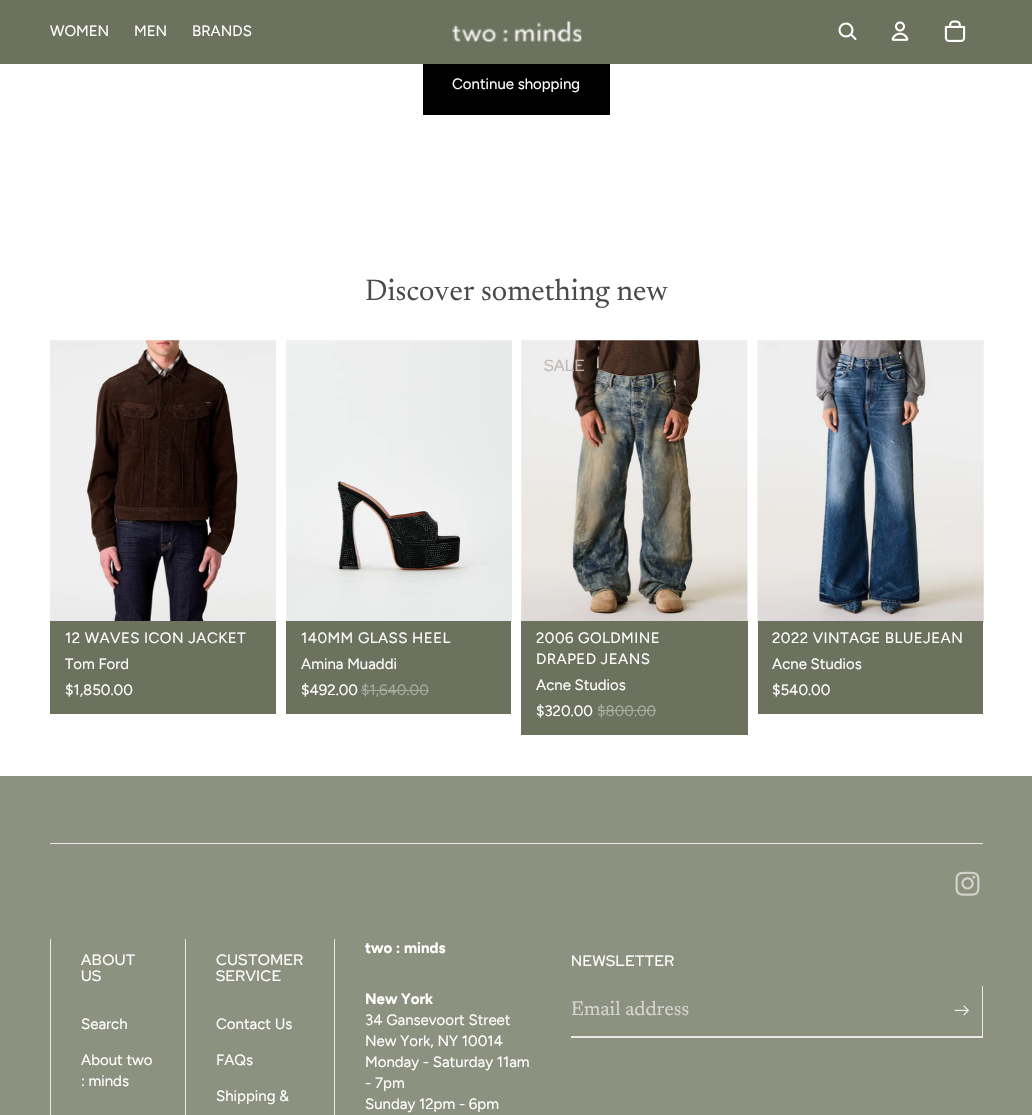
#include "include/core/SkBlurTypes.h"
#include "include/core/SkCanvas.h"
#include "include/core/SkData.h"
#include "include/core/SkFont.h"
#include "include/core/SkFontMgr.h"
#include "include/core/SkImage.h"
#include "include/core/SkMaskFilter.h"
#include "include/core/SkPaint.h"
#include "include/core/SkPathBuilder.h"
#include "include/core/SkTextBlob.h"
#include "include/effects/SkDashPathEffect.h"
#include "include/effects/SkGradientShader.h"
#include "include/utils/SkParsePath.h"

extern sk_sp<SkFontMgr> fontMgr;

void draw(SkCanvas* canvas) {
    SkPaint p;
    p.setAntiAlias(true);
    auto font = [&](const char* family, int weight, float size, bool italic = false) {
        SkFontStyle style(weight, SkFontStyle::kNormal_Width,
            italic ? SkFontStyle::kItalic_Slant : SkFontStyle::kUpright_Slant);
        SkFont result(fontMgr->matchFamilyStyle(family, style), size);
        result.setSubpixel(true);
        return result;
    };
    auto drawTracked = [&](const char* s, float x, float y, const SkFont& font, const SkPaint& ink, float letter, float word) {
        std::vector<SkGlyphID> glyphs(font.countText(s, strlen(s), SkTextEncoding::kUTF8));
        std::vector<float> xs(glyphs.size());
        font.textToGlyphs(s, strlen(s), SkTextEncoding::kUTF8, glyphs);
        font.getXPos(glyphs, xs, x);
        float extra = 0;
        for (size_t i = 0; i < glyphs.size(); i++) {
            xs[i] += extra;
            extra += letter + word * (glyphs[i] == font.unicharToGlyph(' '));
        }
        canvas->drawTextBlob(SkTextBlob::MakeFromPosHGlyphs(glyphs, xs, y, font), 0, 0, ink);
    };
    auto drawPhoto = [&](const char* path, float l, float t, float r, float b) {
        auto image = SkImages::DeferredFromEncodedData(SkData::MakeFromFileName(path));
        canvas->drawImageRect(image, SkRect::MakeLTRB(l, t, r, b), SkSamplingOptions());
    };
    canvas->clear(0xFFFFFFFF);
    p.setColor(0xFF6C725E);
    canvas->drawRect(SkRect::MakeLTRB(0, 0, 1032, 64), p);
    auto font1 = font("Figtree", 400, 15);
    p.setColor(0xFFFFFFFF);
    {
        const struct { const char* s; float x, y; } items[] = {
            {"WOMEN", 50, 36},
            {"MEN", 134, 36},
            {"BRANDS", 192, 36},
        };
        for (auto [s, x, y] : items) {
            canvas->drawString(s, x, y, font1, p);
        }
    }
    drawPhoto("media/1.png", 452, 21, 582, 42);
    p.setStyle(SkPaint::kStroke_Style);
    p.setStrokeWidth(2.1f);
    canvas->drawCircle(846, 30, 6.5f, p);
    p.setStrokeCap(SkPaint::kRound_Cap);
    p.setStrokeJoin(SkPaint::kRound_Join);
    canvas->drawPath(SkPathBuilder().moveTo(851, 34.5f).lineTo(855.5f, 39).detach(), p);
    drawPhoto("media/2.png", 891, 21, 909, 41);
    drawPhoto("media/3.png", 944, 20, 966, 42);
    p.setStyle(SkPaint::kFill_Style);
    p.setColor(0xFF000000);
    canvas->drawRect(SkRect::MakeLTRB(423, 64, 610, 115), p);
    p.setColor(0xFFFFFFFF);
    canvas->drawString("Continue shopping", 452, 89, font1, p);
    auto font2 = font("Newsreader", 400, 30);
    p.setColor(0xFF4A4A4A);
    canvas->drawString("Discover something new", 365, 300, font2, p);
    drawPhoto("media/4.png", 50, 340, 276, 621);
    p.setColor(0xFF6C725E);
    canvas->drawRect(SkRect::MakeLTRB(50, 621, 276, 714), p);
    p.setColor(0xFFFFFFFF);
    drawTracked("12 WAVES ICON JACKET", 65, 643, font1, p, 0.45f, 0);
    canvas->drawString("Tom Ford", 65, 669, font1, p);
    canvas->drawString("$1,850.00", 65, 695, font1, p);
    drawPhoto("media/5.png", 286, 340, 512, 623);
    p.setColor(0xFF6C725E);
    canvas->drawRect(SkRect::MakeLTRB(286, 621, 511, 714), p);
    p.setColor(0xFFFFFFFF);
    drawTracked("140MM GLASS HEEL", 301, 643, font1, p, 0.45f, 0);
    canvas->drawString("Amina Muaddi", 301, 669, font1, p);
    canvas->drawString("$492.00", 301, 695, font1, p);
    p.setColor(0xFFA7AA9E);
    canvas->drawString("$1,640.00", 361, 695, font1, p);
    canvas->drawRect(SkRect::MakeLTRB(361, 690, 429, 691), p);
    drawPhoto("media/6.png", 521, 340, 748, 621);
    auto font3 = font("Red Hat Display", 500, 16);
    p.setColor(0xFFC0B7B4);
    canvas->drawString("SALE", 544, 371, font3, p);
    p.setColor(0xFF6C725E);
    canvas->drawRect(SkRect::MakeLTRB(521, 621, 748, 735), p);
    p.setColor(0xFFFFFFFF);
    drawTracked("2006 GOLDMINE", 536, 643, font1, p, 0.45f, 0);
    drawTracked("DRAPED JEANS", 536, 664, font1, p, 0.45f, 0);
    canvas->drawString("Acne Studios", 536, 690, font1, p);
    canvas->drawString("$320.00", 536, 716, font1, p);
    p.setColor(0xFFA7AA9E);
    canvas->drawString("$800.00", 597, 716, font1, p);
    canvas->drawRect(SkRect::MakeLTRB(598, 710, 656, 711), p);
    drawPhoto("media/7.png", 757, 340, 984, 623);
    p.setColor(0xFF6C725E);
    canvas->drawRect(SkRect::MakeLTRB(758, 621, 983, 714), p);
    p.setColor(0xFFFFFFFF);
    drawTracked("2022 VINTAGE BLUEJEAN", 772, 643, font1, p, 0.45f, 0);
    canvas->drawString("Acne Studios", 772, 669, font1, p);
    canvas->drawString("$540.00", 772, 695, font1, p);
    p.setColor(0xFF8C9180);
    canvas->drawRect(SkRect::MakeLTRB(0, 776, 1032, 1115), p);
    p.setColor(0xFFEAE8E6);
    canvas->drawRect(SkRect::MakeLTRB(50, 843, 983, 844), p);
    drawPhoto("media/8.png", 955, 871, 980, 896);
    canvas->drawRect(SkRect::MakeLTRB(50, 939, 51, 1115), p);
    auto font4 = font("Red Hat Display", 500, 15);
    p.setColor(0xFFFFFFFF);
    drawTracked("ABOUT", 81, 965, font4, p, 0.45f, 0);
    drawTracked("US", 81, 981, font4, p, 0.45f, 0);
    {
        const struct { const char* s; float x, y; } items[] = {
            {"Search", 81, 1029},
            {"About two", 81, 1065},
            {": minds", 81, 1086},
        };
        for (auto [s, x, y] : items) {
            canvas->drawString(s, x, y, font1, p);
        }
    }
    p.setColor(0xFFEAE8E6);
    canvas->drawRect(SkRect::MakeLTRB(185, 939, 186, 1115), p);
    p.setColor(0xFFFFFFFF);
    drawTracked("CUSTOMER", 216, 965, font4, p, 0.45f, 0);
    drawTracked("SERVICE", 216, 981, font4, p, 0.45f, 0);
    {
        const struct { const char* s; float x, y; } items[] = {
            {"Contact Us", 216, 1029},
            {"FAQs", 216, 1065},
            {"Shipping &", 216, 1101},
        };
        for (auto [s, x, y] : items) {
            canvas->drawString(s, x, y, font1, p);
        }
    }
    p.setColor(0xFFEAE8E6);
    canvas->drawRect(SkRect::MakeLTRB(334, 939, 335, 1115), p);
    auto font5 = font("Figtree", 700, 15);
    p.setColor(0xFFFFFFFF);
    canvas->drawString("two : minds", 365, 953, font5, p);
    canvas->drawString("New York", 365, 1004, font5, p);
    {
        const struct { const char* s; float x, y; } items[] = {
            {"34 Gansevoort Street", 365, 1025},
            {"New York, NY 10014", 365, 1046},
            {"Monday - Saturday 11am", 365, 1067},
            {"- 7pm", 365, 1088},
            {"Sunday 12pm - 6pm", 365, 1109},
        };
        for (auto [s, x, y] : items) {
            canvas->drawString(s, x, y, font1, p);
        }
    }
    drawTracked("NEWSLETTER", 571, 966, font4, p, 0.45f, 0);
    p.setColor(0xFFEAE8E6);
    canvas->drawPath(SkPathBuilder().moveTo(571, 986).lineTo(571, 1038).lineTo(983, 1038).lineTo(983, 986).lineTo(982, 986).lineTo(982, 1036).lineTo(571, 1036).close().detach(), p);
    auto font6 = font("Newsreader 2", 400, 20);
    p.setColor(0xFFD5D6D1);
    canvas->drawString("Email address", 571, 1015, font6, p);
    drawPhoto("media/9.png", 954, 1005, 969, 1016);
}
